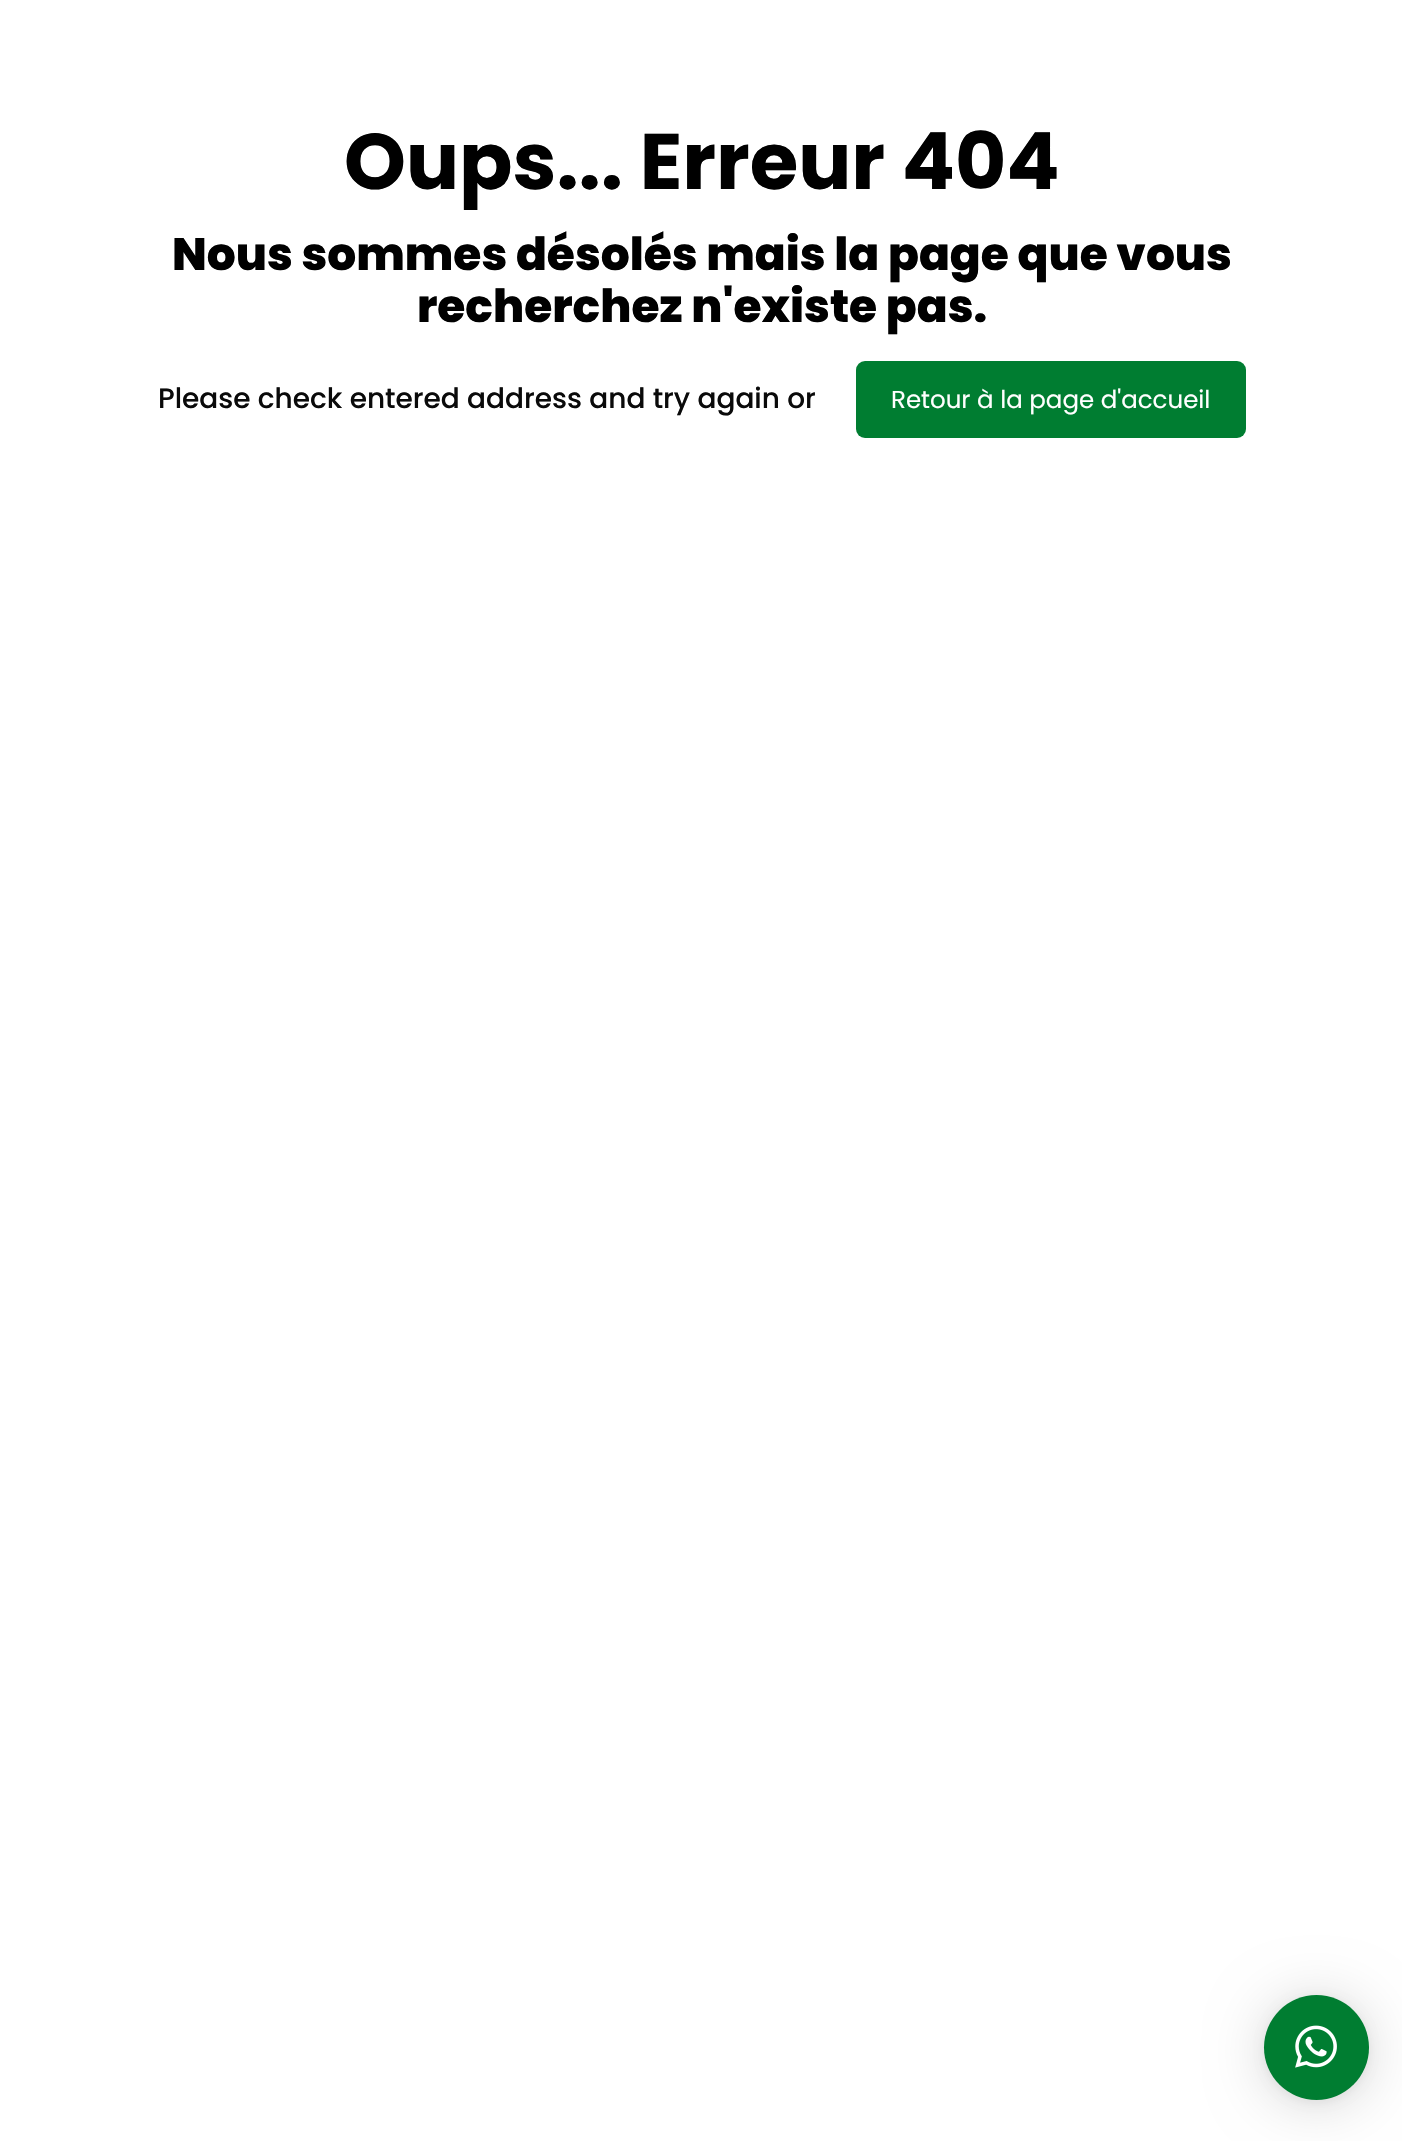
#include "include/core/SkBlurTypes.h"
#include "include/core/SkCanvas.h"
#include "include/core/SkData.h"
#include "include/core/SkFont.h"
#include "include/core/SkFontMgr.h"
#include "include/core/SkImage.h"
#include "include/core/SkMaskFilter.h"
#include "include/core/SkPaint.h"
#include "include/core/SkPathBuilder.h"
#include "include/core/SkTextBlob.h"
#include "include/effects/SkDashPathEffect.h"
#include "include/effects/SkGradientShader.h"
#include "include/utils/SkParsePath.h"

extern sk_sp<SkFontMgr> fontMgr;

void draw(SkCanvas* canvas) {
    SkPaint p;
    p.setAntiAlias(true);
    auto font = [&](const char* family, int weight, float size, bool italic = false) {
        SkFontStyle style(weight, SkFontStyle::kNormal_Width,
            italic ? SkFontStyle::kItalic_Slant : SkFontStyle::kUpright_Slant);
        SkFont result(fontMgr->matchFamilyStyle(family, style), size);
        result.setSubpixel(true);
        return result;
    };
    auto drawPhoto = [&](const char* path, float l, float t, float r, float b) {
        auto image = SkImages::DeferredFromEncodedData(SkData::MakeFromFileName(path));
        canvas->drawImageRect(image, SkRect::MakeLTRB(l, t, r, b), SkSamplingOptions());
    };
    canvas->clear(0xFFFFFFFF);
    auto font1 = font("Poppins", 700, 78.75f);
    p.setColor(0xFF000000);
    canvas->drawString("Oups... Erreur 404", 344, 189, font1, p);
    auto font2 = font("Poppins", 800, 45.5f);
    canvas->drawString("Nous sommes désolés mais la page que vous", 172, 270, font2, p);
    canvas->drawString("recherchez n'existe pas.", 417, 322, font2, p);
    auto font3 = font("Poppins", 500, 28);
    p.setColor(0xFF0A0A0A);
    canvas->drawString("Please check entered address and try again or", 158, 408, font3, p);
    p.setColor(0xFF007D31);
    canvas->drawRoundRect(SkRect::MakeLTRB(856, 361, 1246, 438), 9, 9, p);
    auto font4 = font("Poppins", 400, 24.5f);
    p.setColor(0xFFFFFFFF);
    canvas->drawString("Retour à la page d'accueil", 891, 408, font4, p);
    p.setColor(0x29000000);
    p.setMaskFilter(SkMaskFilter::MakeBlur(kNormal_SkBlurStyle, 28));
    canvas->drawRoundRect(SkRect::MakeLTRB(1264, 1999, 1369, 2104), 52.5f, 52.5f, p);
    p.setMaskFilter(nullptr);
    p.setColor(0x0F000000);
    p.setMaskFilter(SkMaskFilter::MakeBlur(kNormal_SkBlurStyle, 5));
    canvas->drawRoundRect(SkRect::MakeLTRB(1264, 1997, 1369, 2102), 52.5f, 52.5f, p);
    p.setMaskFilter(nullptr);
    p.setColor(0xFF007D31);
    canvas->drawCircle(1316.5f, 2047.5f, 52.5f, p);
    drawPhoto("media/1.png", 1295, 2025, 1337, 2068);
}
